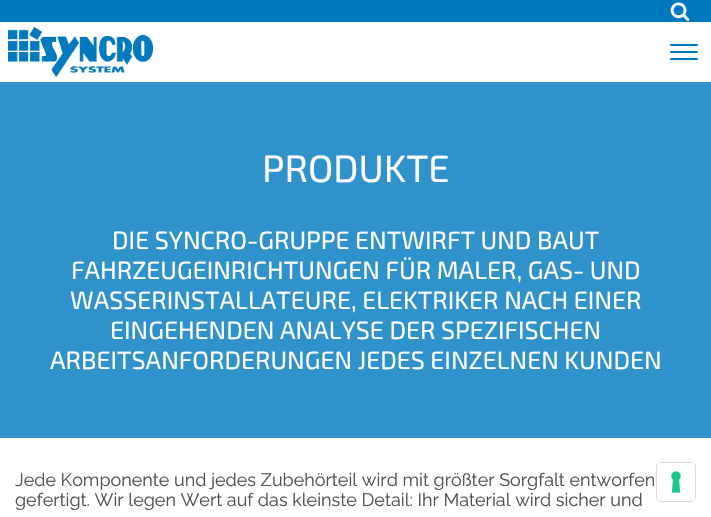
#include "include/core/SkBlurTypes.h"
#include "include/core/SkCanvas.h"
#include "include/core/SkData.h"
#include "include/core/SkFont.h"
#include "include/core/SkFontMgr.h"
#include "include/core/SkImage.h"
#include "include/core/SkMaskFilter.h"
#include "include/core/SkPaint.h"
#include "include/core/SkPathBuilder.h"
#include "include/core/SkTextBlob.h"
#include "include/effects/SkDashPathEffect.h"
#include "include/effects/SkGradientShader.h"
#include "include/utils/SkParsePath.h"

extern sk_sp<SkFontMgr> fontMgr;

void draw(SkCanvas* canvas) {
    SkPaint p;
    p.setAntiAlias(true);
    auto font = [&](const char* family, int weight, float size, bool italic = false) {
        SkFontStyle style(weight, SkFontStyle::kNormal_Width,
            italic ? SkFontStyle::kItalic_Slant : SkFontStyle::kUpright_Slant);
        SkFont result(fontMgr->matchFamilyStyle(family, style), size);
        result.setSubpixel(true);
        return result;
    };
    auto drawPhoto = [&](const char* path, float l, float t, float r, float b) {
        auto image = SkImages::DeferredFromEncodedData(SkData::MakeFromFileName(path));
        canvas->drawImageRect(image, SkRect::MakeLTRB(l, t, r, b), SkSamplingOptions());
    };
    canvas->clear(0xFFFFFFFF);
    p.setColor(0xFF0079BE);
    canvas->drawRect(SkRect::MakeLTRB(0, 0, 711, 22), p);
    drawPhoto("media/1.png", 670, 2, 690, 21);
    drawPhoto("media/2.png", 8, 27, 153, 77);
    canvas->drawRoundRect(SkRect::MakeLTRB(670, 44, 698, 46), 1, 1, p);
    canvas->drawRoundRect(SkRect::MakeLTRB(670, 51, 698, 53), 1, 1, p);
    canvas->drawRoundRect(SkRect::MakeLTRB(670, 58, 698, 60), 1, 1, p);
    p.setColor(0xFF2F92CB);
    canvas->drawRect(SkRect::MakeLTRB(0, 82, 711, 438), p);
    auto font1 = font("Exo 2", 400, 38);
    p.setColor(0xFFFFFFFF);
    canvas->drawString("PRODUKTE", 262, 182, font1, p);
    auto font2 = font("Exo 2", 400, 25);
    {
        const struct { const char* s; float x, y; } items[] = {
            {"DIE SYNCRO-GRUPPE ENTWIRFT UND BAUT", 112, 249},
            {"FAHRZEUGEINRICHTUNGEN FÜR MALER, GAS- UND", 71, 279},
            {"WASSERINSTALLATEURE, ELEKTRIKER NACH EINER", 70, 309},
            {"EINGEHENDEN ANALYSE DER SPEZIFISCHEN", 110, 339},
            {"ARBEITSANFORDERUNGEN JEDES EINZELNEN KUNDEN", 50, 369},
        };
        for (auto [s, x, y] : items) {
            canvas->drawString(s, x, y, font2, p);
        }
    }
    auto font3 = font("Raleway", 400, 18);
    p.setColor(0xFF4E4E4E);
    canvas->drawString("Jede Komponente und jedes Zubehörteil wird mit größter Sorgfalt entworfen", 15, 486, font3, p);
    canvas->drawString("gefertigt. Wir legen Wert auf das kleinste Detail: Ihr Material wird sicher und", 15, 506, font3, p);
    p.setStyle(SkPaint::kStroke_Style);
    p.setStrokeWidth(1);
    p.setColor(0xFFD9D9D9);
    canvas->drawRoundRect(SkRect::MakeLTRB(656.5f, 462.5f, 695.5f, 501.5f), 4.5f, 4.5f, p);
    p.setStyle(SkPaint::kFill_Style);
    p.setColor(0xFFFFFFFF);
    canvas->drawRoundRect(SkRect::MakeLTRB(657, 463, 695, 501), 4, 4, p);
    drawPhoto("media/3.png", 671, 471, 681, 493);
}
